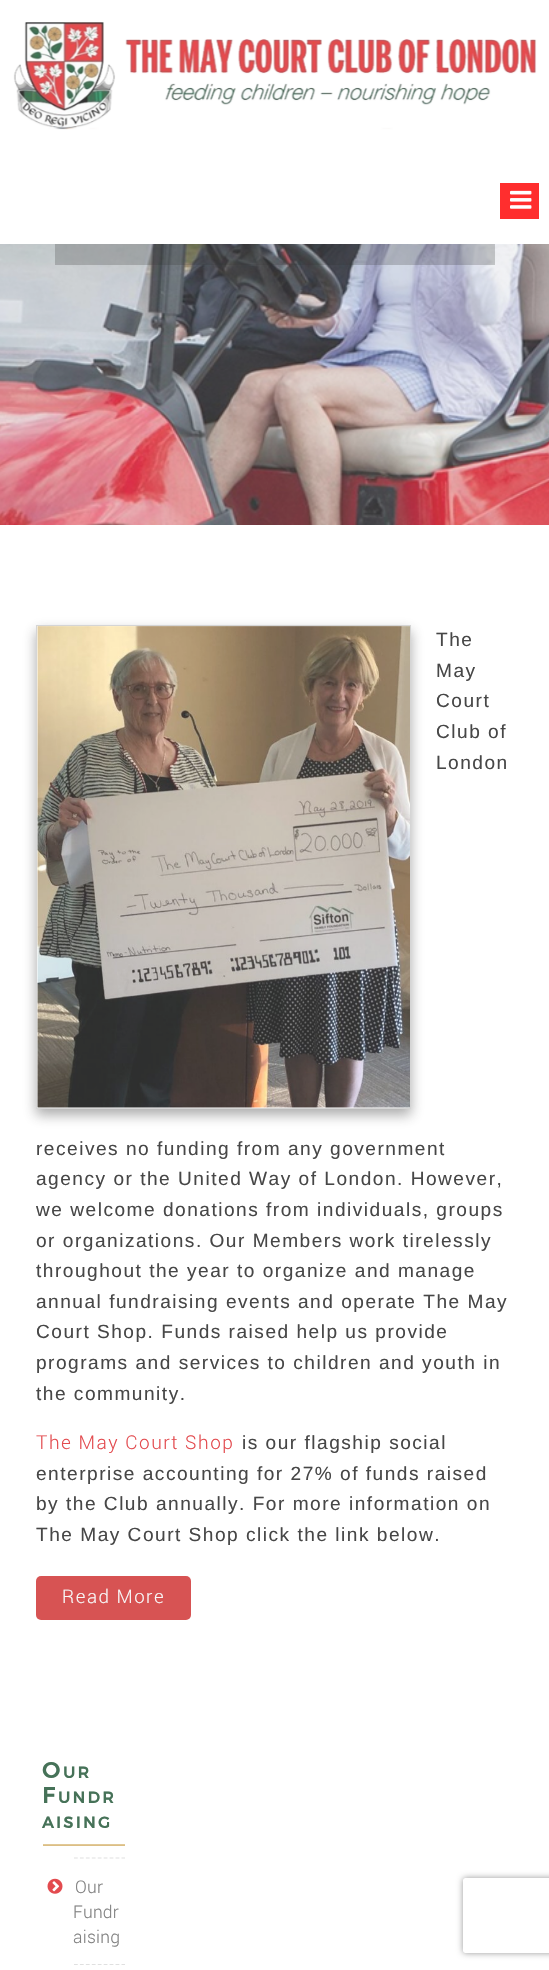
#include "include/core/SkBlurTypes.h"
#include "include/core/SkCanvas.h"
#include "include/core/SkData.h"
#include "include/core/SkFont.h"
#include "include/core/SkFontMgr.h"
#include "include/core/SkImage.h"
#include "include/core/SkMaskFilter.h"
#include "include/core/SkPaint.h"
#include "include/core/SkPathBuilder.h"
#include "include/core/SkTextBlob.h"
#include "include/effects/SkDashPathEffect.h"
#include "include/effects/SkGradientShader.h"
#include "include/utils/SkParsePath.h"

extern sk_sp<SkFontMgr> fontMgr;

void draw(SkCanvas* canvas) {
    SkPaint p;
    p.setAntiAlias(true);
    auto font = [&](const char* family, int weight, float size, bool italic = false) {
        SkFontStyle style(weight, SkFontStyle::kNormal_Width,
            italic ? SkFontStyle::kItalic_Slant : SkFontStyle::kUpright_Slant);
        SkFont result(fontMgr->matchFamilyStyle(family, style), size);
        result.setSubpixel(true);
        return result;
    };
    auto drawTracked = [&](const char* s, float x, float y, const SkFont& font, const SkPaint& ink, float letter, float word) {
        std::vector<SkGlyphID> glyphs(font.countText(s, strlen(s), SkTextEncoding::kUTF8));
        std::vector<float> xs(glyphs.size());
        font.textToGlyphs(s, strlen(s), SkTextEncoding::kUTF8, glyphs);
        font.getXPos(glyphs, xs, x);
        float extra = 0;
        for (size_t i = 0; i < glyphs.size(); i++) {
            xs[i] += extra;
            extra += letter + word * (glyphs[i] == font.unicharToGlyph(' '));
        }
        canvas->drawTextBlob(SkTextBlob::MakeFromPosHGlyphs(glyphs, xs, y, font), 0, 0, ink);
    };
    auto drawPhoto = [&](const char* path, float l, float t, float r, float b) {
        auto image = SkImages::DeferredFromEncodedData(SkData::MakeFromFileName(path));
        canvas->drawImageRect(image, SkRect::MakeLTRB(l, t, r, b), SkSamplingOptions());
    };
    canvas->clear(0xFFFFFFFF);
    drawPhoto("media/1.png", 13, 22, 537, 130);
    p.setColor(0xFFFF2E2E);
    canvas->drawRect(SkRect::MakeLTRB(500, 183, 539, 219), p);
    drawPhoto("media/2.png", 510, 190, 532, 209);
    drawPhoto("media/3.png", 0, 244, 549, 525);
    p.setColor(0x3B2E2E2E);
    canvas->drawRect(SkRect::MakeLTRB(55, 244, 495, 265), p);
    p.setColor(0x662E2E2E);
    p.setMaskFilter(SkMaskFilter::MakeBlur(kNormal_SkBlurStyle, 6));
    canvas->drawRect(SkRect::MakeLTRB(36, 631, 411, 1115), p);
    p.setMaskFilter(nullptr);
    p.setColor(0xFFFFFFFF);
    canvas->drawRect(SkRect::MakeLTRB(36.5f, 625.5f, 410.5f, 1108.5f), p);
    p.setStyle(SkPaint::kStroke_Style);
    p.setStrokeWidth(1);
    p.setColor(0xFFD5D5D5);
    canvas->drawRect(SkRect::MakeLTRB(36.5f, 625.5f, 410.5f, 1108.5f), p);
    drawPhoto("media/4.png", 37, 626, 410, 1108);
    auto font1 = font("Liberation Sans", 400, 19.1f);
    p.setStyle(SkPaint::kFill_Style);
    p.setColor(0xFF474747);
    {
        const struct { const char* s; float x, y; } items[] = {
            {"The", 436, 646},
            {"May", 436, 677},
            {"Court", 436, 707},
            {"Club of", 436, 738},
            {"London", 436, 769},
            {"receives no funding from any government", 36, 1155},
            {"agency or the United Way of London. However,", 36, 1185},
            {"we welcome donations from individuals, groups", 36, 1216},
            {"or organizations. Our Members work tirelessly", 36, 1247},
            {"throughout the year to organize and manage", 36, 1277},
            {"annual fundraising events and operate The May", 36, 1308},
            {"Court Shop. Funds raised help us provide", 36, 1338},
            {"programs and services to children and youth in", 36, 1369},
            {"the community.", 36, 1400},
        };
        for (auto [s, x, y] : items) {
            drawTracked(s, x, y, font1, p, 1.5f, 0);
        }
    }
    auto font2 = font("Roboto", 300, 19.1f);
    p.setColor(0xFFE34B4F);
    drawTracked("The May Court Shop", 36, 1449, font2, p, 1.5f, 0);
    p.setColor(0xFF474747);
    {
        const struct { const char* s; float x, y; } items[] = {
            {"is our flagship social", 242, 1449},
            {"enterprise accounting for 27% of funds raised", 36, 1480},
            {"by the Club annually. For more information on", 36, 1510},
            {"The May Court Shop click the link below.", 36, 1541},
        };
        for (auto [s, x, y] : items) {
            drawTracked(s, x, y, font1, p, 1.5f, 0);
        }
    }
    p.setColor(0xFFD75353);
    canvas->drawRoundRect(SkRect::MakeLTRB(36, 1576, 191, 1620), 5, 5, p);
    auto font3 = font("Roboto", 300, 18.75f);
    p.setColor(0xFFF8F8F8);
    drawTracked("Read More", 62, 1603, font3, p, 1.5f, 0);
    p.setColor(0xFFDCBE84);
    canvas->drawRect(SkRect::MakeLTRB(43, 1845, 125, 1846), p);
    p.setColor(0xFFE1C997);
    canvas->drawRect(SkRect::MakeLTRB(43, 1844, 125, 1845), p);
    auto font4 = font("Montserrat", 700, 22);
    p.setColor(0xFF467258);
    drawTracked("O", 42, 1778, font4, p, 2.5f, 0);
    auto font5 = font("Montserrat", 700, 15.75f);
    drawTracked("UR", 63, 1778, font5, p, 2.5f, 0);
    drawTracked("F", 42, 1803, font4, p, 2.5f, 0);
    drawTracked("UNDR", 58, 1803, font5, p, 2.5f, 0);
    drawTracked("AISING", 42, 1828, font5, p, 2.5f, 0);
    p.setStyle(SkPaint::kStroke_Style);
    p.setStrokeWidth(1.2f);
    p.setColor(0xFFE0E0E0);
    p.setPathEffect(SkDashPathEffect::Make({{3.75f, 2.19f}}, 0));
    canvas->drawPath(SkPathBuilder().moveTo(74, 1858).lineTo(125, 1858).detach(), p);
    p.setPathEffect(nullptr);
    drawPhoto("media/5.png", 47, 1878, 63, 1894);
    auto font6 = font("Roboto", 300, 17.5f);
    p.setStyle(SkPaint::kFill_Style);
    p.setColor(0xFF818181);
    {
        const struct { const char* s; float x, y; } items[] = {
            {"Our", 75, 1893},
            {"Fundr", 73, 1918},
            {"aising", 73, 1943},
        };
        for (auto [s, x, y] : items) {
            drawTracked(s, x, y, font6, p, 0.25f, 0);
        }
    }
    p.setStyle(SkPaint::kStroke_Style);
    p.setColor(0xFFE0E0E0);
    p.setPathEffect(SkDashPathEffect::Make({{3.75f, 2.19f}}, 0));
    canvas->drawPath(SkPathBuilder().moveTo(74, 1964.5f).lineTo(125, 1964.5f).detach(), p);
    p.setPathEffect(nullptr);
    canvas->save();
    canvas->clipPath(SkPathBuilder(SkPathFillType::kEvenOdd).moveTo(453, 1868).lineTo(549, 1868).lineTo(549, 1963).lineTo(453, 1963).close().moveTo(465.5f, 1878).lineTo(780.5f, 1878).cubicTo(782, 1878, 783, 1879, 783, 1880.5f).lineTo(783, 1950.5f).cubicTo(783, 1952, 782, 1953, 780.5f, 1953).lineTo(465.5f, 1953).cubicTo(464, 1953, 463, 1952, 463, 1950.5f).lineTo(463, 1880.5f).cubicTo(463, 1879, 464, 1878, 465.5f, 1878).close().detach(), true);
    p.setStyle(SkPaint::kFill_Style);
    p.setColor(0xFF979797);
    p.setMaskFilter(SkMaskFilter::MakeBlur(kNormal_SkBlurStyle, 3));
    canvas->drawRoundRect(SkRect::MakeLTRB(463, 1878, 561, 1953), 2.5f, 2.5f, p);
    p.setMaskFilter(nullptr);
    canvas->restore();
}
